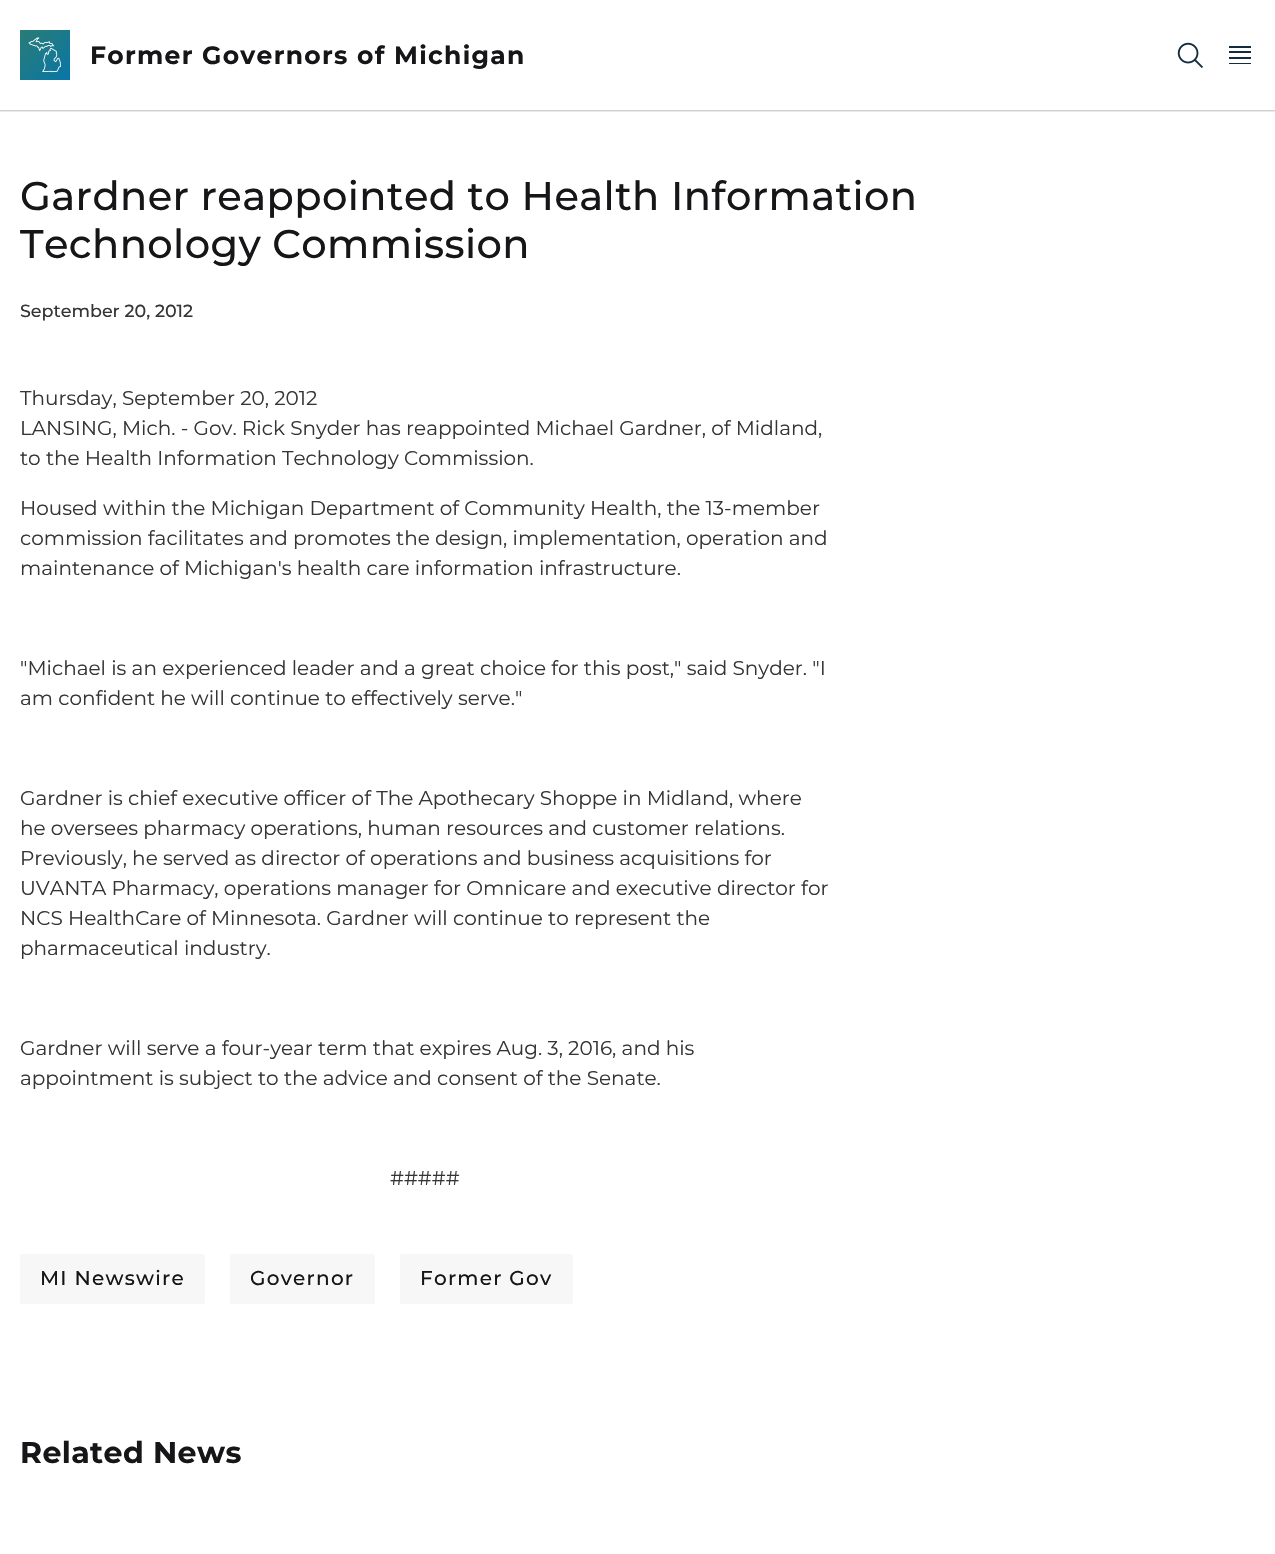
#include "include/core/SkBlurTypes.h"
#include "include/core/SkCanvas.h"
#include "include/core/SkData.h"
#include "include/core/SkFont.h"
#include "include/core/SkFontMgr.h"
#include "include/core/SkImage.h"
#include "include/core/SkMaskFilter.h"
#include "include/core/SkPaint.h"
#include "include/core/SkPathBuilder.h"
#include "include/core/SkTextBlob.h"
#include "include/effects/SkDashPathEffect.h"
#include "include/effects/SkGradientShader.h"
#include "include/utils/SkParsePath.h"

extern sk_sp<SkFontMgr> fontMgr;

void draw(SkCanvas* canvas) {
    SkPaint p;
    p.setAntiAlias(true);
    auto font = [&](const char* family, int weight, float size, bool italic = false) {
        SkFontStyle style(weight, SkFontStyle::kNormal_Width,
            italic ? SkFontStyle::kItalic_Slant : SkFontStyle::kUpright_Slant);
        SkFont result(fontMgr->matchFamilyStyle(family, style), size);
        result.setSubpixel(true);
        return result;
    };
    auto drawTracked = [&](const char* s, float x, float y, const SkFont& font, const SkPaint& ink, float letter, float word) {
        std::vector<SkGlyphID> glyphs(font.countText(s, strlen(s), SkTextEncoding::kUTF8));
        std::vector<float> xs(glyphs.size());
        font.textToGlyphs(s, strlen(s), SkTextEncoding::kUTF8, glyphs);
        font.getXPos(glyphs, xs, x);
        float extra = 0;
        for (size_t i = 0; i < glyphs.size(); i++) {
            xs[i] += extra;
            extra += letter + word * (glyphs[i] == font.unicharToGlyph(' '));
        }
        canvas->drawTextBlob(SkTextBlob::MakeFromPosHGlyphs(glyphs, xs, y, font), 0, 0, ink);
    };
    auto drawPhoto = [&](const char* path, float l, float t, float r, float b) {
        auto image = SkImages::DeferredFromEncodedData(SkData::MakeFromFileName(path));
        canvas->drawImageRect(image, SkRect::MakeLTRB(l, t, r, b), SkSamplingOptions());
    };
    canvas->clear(0xFFFFFFFF);
    p.setColor(0xFFD0D0D0);
    canvas->drawRect(SkRect::MakeLTRB(0, 110, 1275, 111), p);
    drawPhoto("media/1.png", 20, 30, 70, 80);
    auto font1 = font("Montserrat", 700, 25);
    p.setColor(0xFF161618);
    drawTracked("Former Governors of Michigan", 90, 64, font1, p, 1.3f, 0);
    drawPhoto("media/2.png", 1177, 42, 1203, 68);
    {
        const struct { float l, t, r, b; SkColor color; } items[] = {
            {1229, 63, 1251, 64, 0xFF142D3E},
            {1229, 51, 1251, 53, 0xFF142D3E},
            {1229, 57, 1251, 59, 0xFF142D3E},
            {1229, 46, 1251, 48, 0xFF142D3E},
            {0, 111, 1275, 112, 0xFFEAEAEA},
        };
        for (auto [l, t, r, b, color] : items) {
            p.setColor(color);
            canvas->drawRect(SkRect::MakeLTRB(l, t, r, b), p);
        }
    }
    auto font2 = font("Montserrat", 500, 40);
    p.setColor(0xFF161618);
    drawTracked("Gardner reappointed to Health Information", 20, 210, font2, p, 0.4f, 0);
    drawTracked("Technology Commission", 20, 258, font2, p, 0.4f, 0);
    auto font3 = font("Montserrat", 500, 17.5f);
    p.setColor(0xFF353535);
    canvas->drawString("September 20, 2012", 20, 317, font3, p);
    auto font4 = font("Montserrat", 400, 20);
    {
        const struct { const char* s; float x, y; } items[] = {
            {"Thursday, September 20, 2012", 20, 405},
            {"LANSING, Mich. - Gov. Rick Snyder has reappointed Michael Gardner, of Midland,", 20, 435},
            {"to the Health Information Technology Commission.", 20, 465},
            {"Housed within the Michigan Department of Community Health, the 13-member", 20, 515},
            {"commission facilitates and promotes the design, implementation, operation and", 20, 545},
            {"maintenance of Michigan's health care information infrastructure.", 20, 575},
            {"\"Michael is an experienced leader and a great choice for this post,\" said Snyder. \"I", 20, 675},
            {"am confident he will continue to effectively serve.\"", 20, 705},
            {"Gardner is chief executive officer of The Apothecary Shoppe in Midland, where", 20, 805},
            {"he oversees pharmacy operations, human resources and customer relations.", 20, 835},
            {"Previously, he served as director of operations and business acquisitions for", 20, 865},
            {"UVANTA Pharmacy, operations manager for Omnicare and executive director for", 20, 895},
            {"NCS HealthCare of Minnesota. Gardner will continue to represent the", 20, 925},
            {"pharmaceutical industry.", 20, 955},
            {"Gardner will serve a four-year term that expires Aug. 3, 2016, and his", 20, 1055},
            {"appointment is subject to the advice and consent of the Senate.", 20, 1085},
            {"#####", 390, 1185},
        };
        for (auto [s, x, y] : items) {
            canvas->drawString(s, x, y, font4, p);
        }
    }
    p.setColor(0xFFF7F7F7);
    canvas->drawRoundRect(SkRect::MakeLTRB(20, 1254, 205, 1304), 2.5f, 2.5f, p);
    auto font5 = font("Montserrat", 500, 20);
    p.setColor(0xFF161618);
    drawTracked("MI Newswire", 40, 1285, font5, p, 1.25f, 0);
    p.setColor(0xFFF7F7F7);
    canvas->drawRoundRect(SkRect::MakeLTRB(230, 1254, 375, 1304), 2.5f, 2.5f, p);
    p.setColor(0xFF161618);
    drawTracked("Governor", 250, 1285, font5, p, 1.25f, 0);
    p.setColor(0xFFF7F7F7);
    canvas->drawRoundRect(SkRect::MakeLTRB(400, 1254, 573, 1304), 2.5f, 2.5f, p);
    p.setColor(0xFF161618);
    drawTracked("Former Gov", 420, 1285, font5, p, 1.25f, 0);
    auto font6 = font("Montserrat", 700, 30);
    drawTracked("Related News", 20, 1463, font6, p, 0.4f, 0);
}
